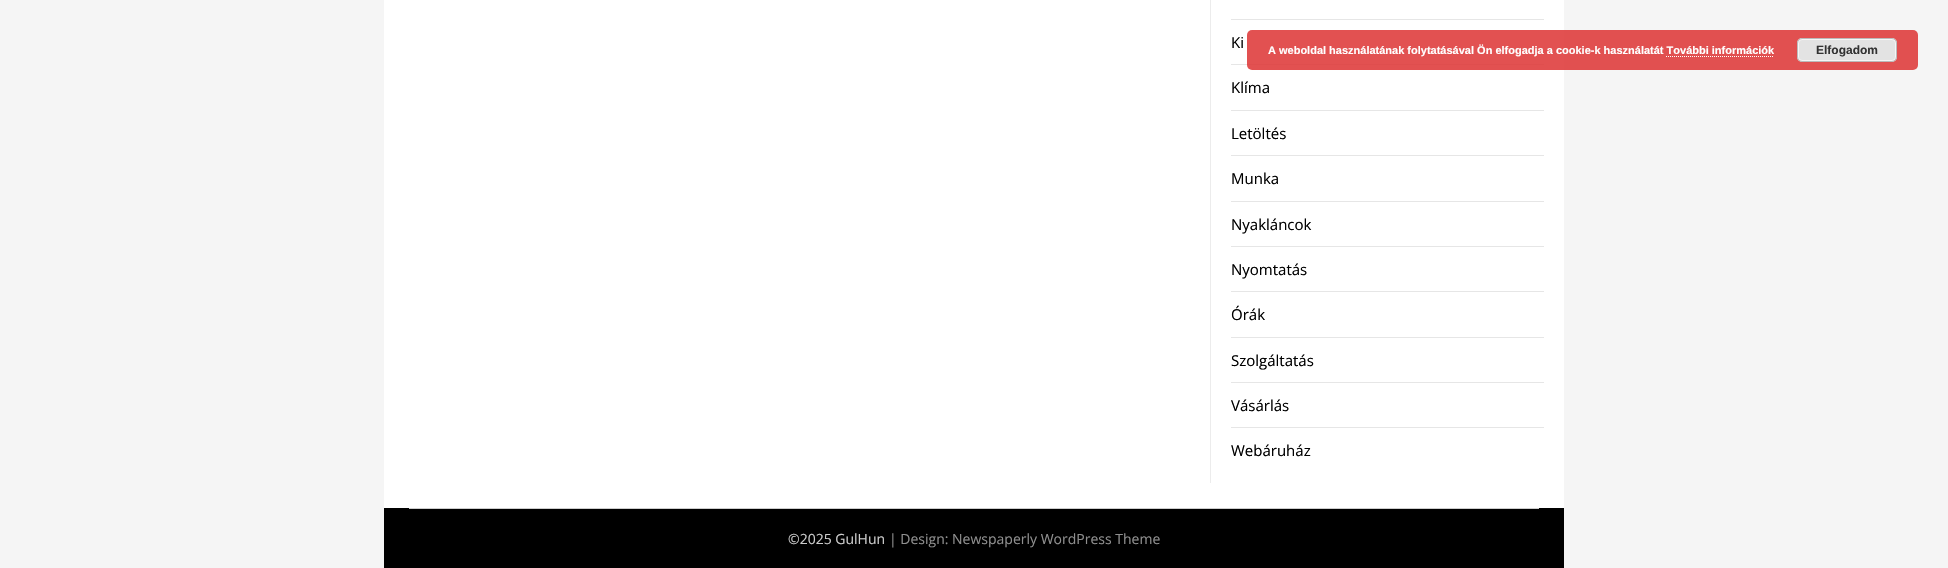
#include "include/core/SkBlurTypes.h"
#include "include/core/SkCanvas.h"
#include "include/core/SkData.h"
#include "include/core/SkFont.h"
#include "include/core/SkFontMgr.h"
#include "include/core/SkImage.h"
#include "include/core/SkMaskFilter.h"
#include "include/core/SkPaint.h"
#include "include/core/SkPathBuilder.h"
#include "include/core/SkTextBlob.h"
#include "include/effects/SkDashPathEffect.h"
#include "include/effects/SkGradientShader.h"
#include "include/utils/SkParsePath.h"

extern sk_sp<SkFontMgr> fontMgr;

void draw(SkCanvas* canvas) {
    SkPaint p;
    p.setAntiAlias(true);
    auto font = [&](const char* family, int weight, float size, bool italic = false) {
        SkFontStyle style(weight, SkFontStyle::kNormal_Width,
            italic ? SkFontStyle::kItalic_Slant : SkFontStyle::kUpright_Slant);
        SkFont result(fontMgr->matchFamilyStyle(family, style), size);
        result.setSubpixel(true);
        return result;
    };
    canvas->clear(0xFFF5F5F5);
    {
        const struct { float l, t, r, b; SkColor color; } items[] = {
            {384, 0, 1564, 508, 0xFFFFFFFF},
            {1210, 0, 1211, 483, 0xFFECECEC},
            {1231, 19, 1544, 20, 0xFFE6E6E6},
            {1231, 64, 1544, 65, 0xFFE6E6E6},
        };
        for (auto [l, t, r, b, color] : items) {
            p.setColor(color);
            canvas->drawRect(SkRect::MakeLTRB(l, t, r, b), p);
        }
    }
    auto font1 = font("Open Sans", 400, 15);
    p.setColor(0xFF000000);
    canvas->drawString("Ki", 1231, 48, font1, p);
    p.setColor(0xFFE6E6E6);
    canvas->drawRect(SkRect::MakeLTRB(1231, 110, 1544, 111), p);
    p.setColor(0xFF000000);
    canvas->drawString("Klíma", 1231, 93, font1, p);
    p.setColor(0xFFE6E6E6);
    canvas->drawRect(SkRect::MakeLTRB(1231, 155, 1544, 156), p);
    p.setColor(0xFF000000);
    canvas->drawString("Letöltés", 1231, 139, font1, p);
    p.setColor(0xFFE6E6E6);
    canvas->drawRect(SkRect::MakeLTRB(1231, 201, 1544, 202), p);
    p.setColor(0xFF000000);
    canvas->drawString("Munka", 1231, 184, font1, p);
    p.setColor(0xFFE6E6E6);
    canvas->drawRect(SkRect::MakeLTRB(1231, 246, 1544, 247), p);
    p.setColor(0xFF000000);
    canvas->drawString("Nyakláncok", 1231, 230, font1, p);
    p.setColor(0xFFE6E6E6);
    canvas->drawRect(SkRect::MakeLTRB(1231, 291, 1544, 292), p);
    p.setColor(0xFF000000);
    canvas->drawString("Nyomtatás", 1231, 275, font1, p);
    p.setColor(0xFFE6E6E6);
    canvas->drawRect(SkRect::MakeLTRB(1231, 337, 1544, 338), p);
    p.setColor(0xFF000000);
    canvas->drawString("Órák", 1231, 320, font1, p);
    p.setColor(0xFFE6E6E6);
    canvas->drawRect(SkRect::MakeLTRB(1231, 382, 1544, 383), p);
    p.setColor(0xFF000000);
    canvas->drawString("Szolgáltatás", 1231, 366, font1, p);
    p.setColor(0xFFE6E6E6);
    canvas->drawRect(SkRect::MakeLTRB(1231, 427, 1544, 428), p);
    p.setColor(0xFF000000);
    canvas->drawString("Vásárlás", 1231, 411, font1, p);
    canvas->drawString("Webáruház", 1231, 456, font1, p);
    canvas->drawRect(SkRect::MakeLTRB(384, 508, 1564, 568), p);
    p.setColor(0xFFCCCCCC);
    canvas->drawRect(SkRect::MakeLTRB(409, 508, 1539, 509), p);
    auto font2 = font("Open Sans", 400, 14);
    canvas->drawString("©2025 GulHun", 788, 544, font2, p);
    p.setColor(0xFF8F8F8F);
    canvas->drawString("| Design: Newspaperly WordPress Theme", 889, 544, font2, p);
    p.setColor(0xD9DD3333);
    canvas->drawRoundRect(SkRect::MakeLTRB(1247, 30, 1918, 70), 5, 5, p);
    auto font3 = font("Liberation Sans", 700, 11);
    p.setColor(0xFFFFFFFF);
    canvas->drawString("A weboldal használatának folytatásával Ön elfogadja a cookie-k használatát További információk", 1268, 54, font3, p);
    p.setColor(0xFFE3E3E3);
    canvas->drawRoundRect(SkRect::MakeLTRB(1797, 38, 1897, 62), 5, 5, p);
    p.setStyle(SkPaint::kStroke_Style);
    p.setStrokeWidth(1);
    p.setColor(0xFFF6F6F6);
    canvas->drawRoundRect(SkRect::MakeLTRB(1798.5f, 39.5f, 1895.5f, 60.5f), 3.5f, 3.5f, p);
    p.setColor(0xFFBBBBBB);
    canvas->drawRoundRect(SkRect::MakeLTRB(1797.5f, 38.5f, 1896.5f, 61.5f), 4.5f, 4.5f, p);
    auto font4 = font("Liberation Sans", 700, 12);
    p.setStyle(SkPaint::kFill_Style);
    p.setColor(0xFF333333);
    canvas->drawString("Elfogadom", 1816, 54, font4, p);
    p.setStyle(SkPaint::kStroke_Style);
    p.setColor(0xFFFFFFFF);
    p.setPathEffect(SkDashPathEffect::Make({{1, 1}}, 0));
    canvas->drawPath(SkPathBuilder().moveTo(1666, 56.5f).lineTo(1774, 56.5f).detach(), p);
    p.setPathEffect(nullptr);
}
